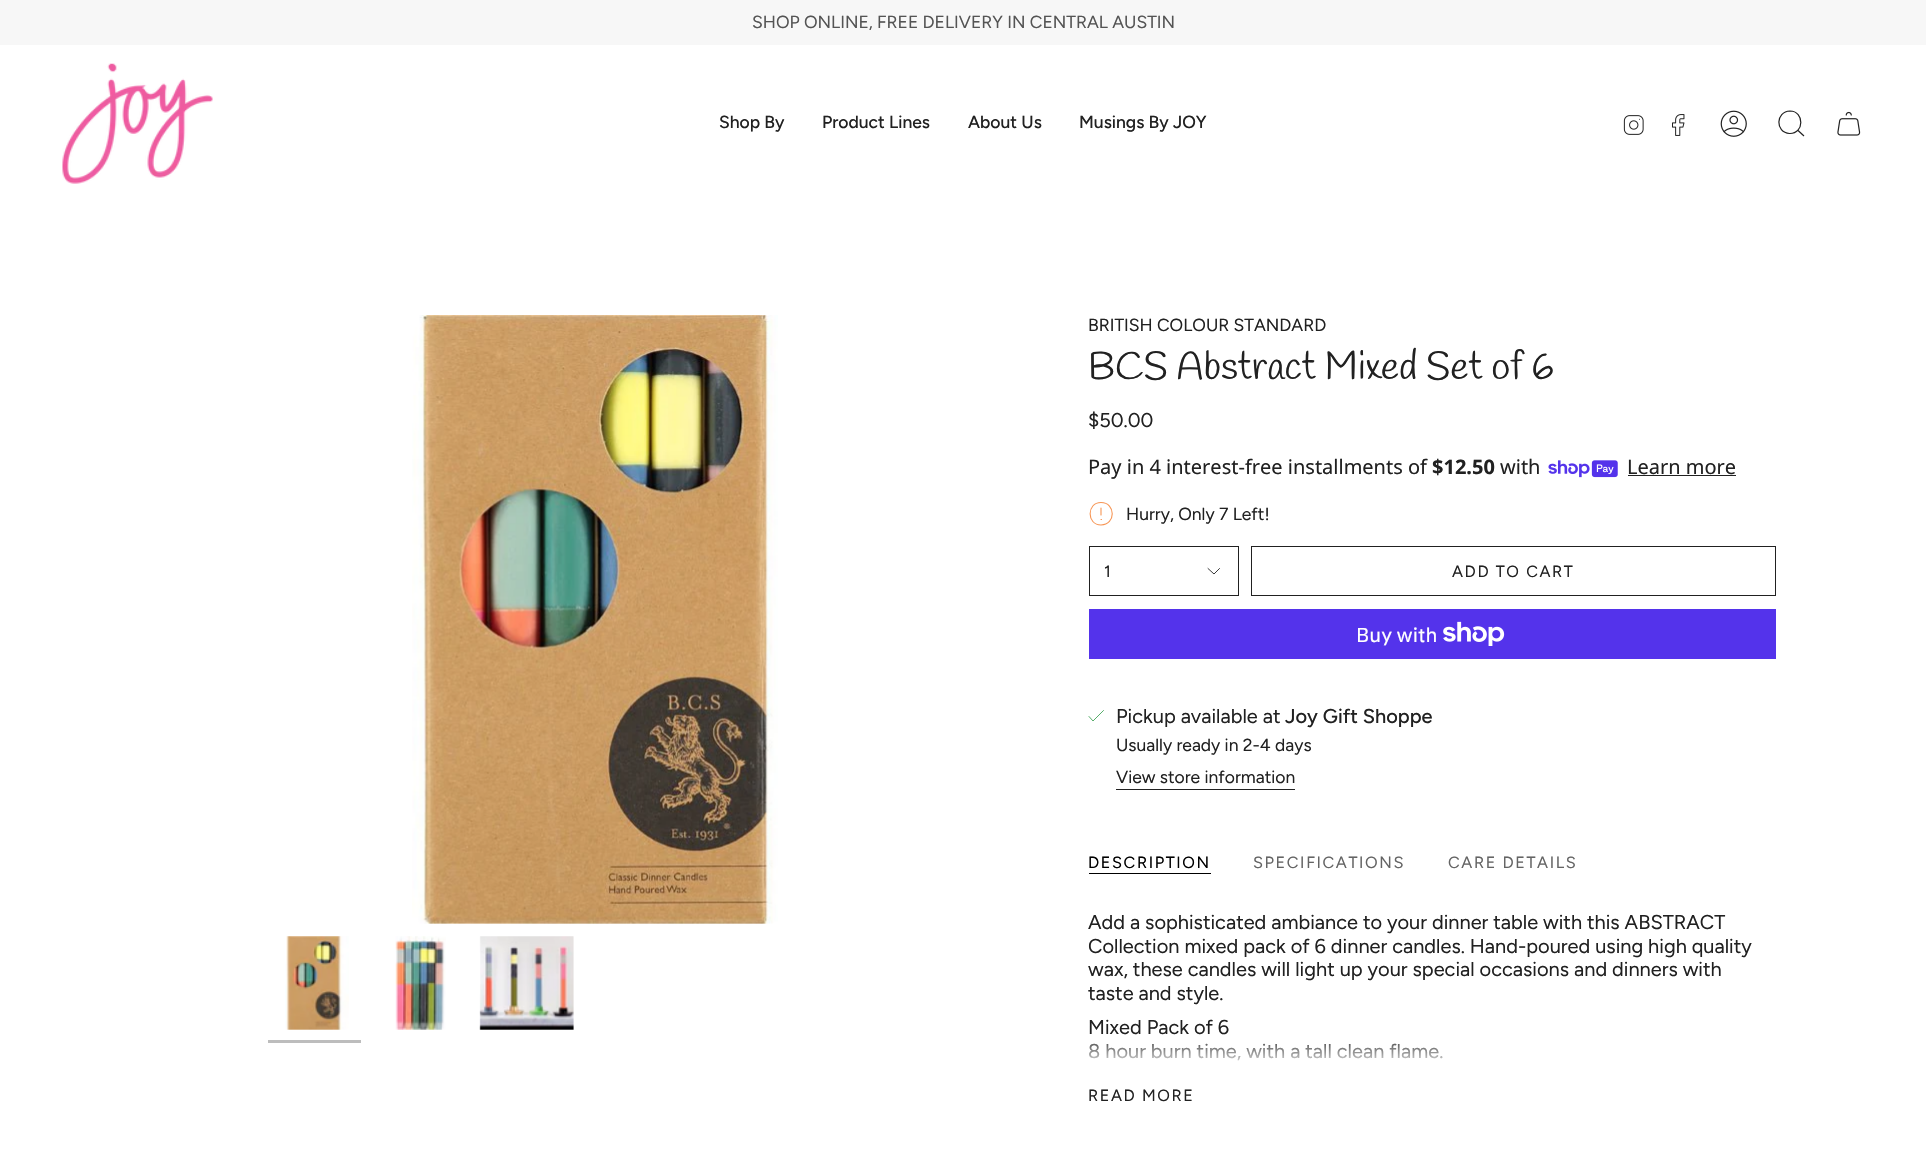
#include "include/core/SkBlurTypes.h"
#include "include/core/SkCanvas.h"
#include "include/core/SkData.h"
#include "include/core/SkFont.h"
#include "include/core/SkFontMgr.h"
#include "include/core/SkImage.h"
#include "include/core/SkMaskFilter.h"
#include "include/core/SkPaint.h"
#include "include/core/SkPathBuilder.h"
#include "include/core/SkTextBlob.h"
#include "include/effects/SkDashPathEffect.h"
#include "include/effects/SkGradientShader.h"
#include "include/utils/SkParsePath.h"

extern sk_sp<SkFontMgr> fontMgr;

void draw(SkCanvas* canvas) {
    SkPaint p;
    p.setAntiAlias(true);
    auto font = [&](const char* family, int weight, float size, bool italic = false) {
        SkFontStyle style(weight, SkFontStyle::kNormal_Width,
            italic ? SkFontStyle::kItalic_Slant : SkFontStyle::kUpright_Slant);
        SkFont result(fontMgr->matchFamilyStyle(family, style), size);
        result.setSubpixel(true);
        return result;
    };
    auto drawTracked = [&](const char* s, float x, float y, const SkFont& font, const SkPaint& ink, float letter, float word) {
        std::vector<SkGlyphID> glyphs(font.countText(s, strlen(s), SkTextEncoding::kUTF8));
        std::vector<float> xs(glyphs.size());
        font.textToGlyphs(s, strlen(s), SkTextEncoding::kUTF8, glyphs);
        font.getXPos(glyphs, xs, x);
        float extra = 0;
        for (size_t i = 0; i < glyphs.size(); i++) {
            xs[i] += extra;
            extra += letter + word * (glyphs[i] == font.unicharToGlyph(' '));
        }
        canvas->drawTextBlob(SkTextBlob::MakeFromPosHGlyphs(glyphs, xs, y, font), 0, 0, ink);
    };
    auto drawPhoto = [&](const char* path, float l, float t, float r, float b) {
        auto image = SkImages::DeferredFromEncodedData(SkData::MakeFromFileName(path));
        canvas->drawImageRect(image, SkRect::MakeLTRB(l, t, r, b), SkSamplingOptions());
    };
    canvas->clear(0xFFFFFFFF);
    p.setColor(0xFFF7F7F7);
    canvas->drawRect(SkRect::MakeLTRB(0, 0, 1926, 45), p);
    auto font1 = font("Figtree", 400, 17.5f);
    p.setColor(0xFF545454);
    canvas->drawString("SHOP ONLINE, FREE DELIVERY IN CENTRAL AUSTIN", 752, 28, font1, p);
    drawPhoto("media/1.png", 62, 63, 213, 184);
    auto font2 = font("Figtree", 500, 17.5f);
    p.setColor(0xFF212121);
    {
        const struct { const char* s; float x, y; } items[] = {
            {"Shop By", 719, 128},
            {"Product Lines", 822, 128},
            {"About Us", 968, 128},
            {"Musings By JOY", 1079, 128},
        };
        for (auto [s, x, y] : items) {
            canvas->drawString(s, x, y, font2, p);
        }
    }
    drawPhoto("media/2.png", 1623, 115, 1644, 135);
    drawPhoto("media/3.png", 1672, 114, 1685, 136);
    drawPhoto("media/4.png", 1720, 110, 1747, 137);
    p.setStyle(SkPaint::kStroke_Style);
    p.setStrokeWidth(1.2f);
    canvas->drawPath(SkPathBuilder().moveTo(1790, 111).cubicTo(1804.5f, 111, 1804.5f, 134, 1789.5f, 133.5f).cubicTo(1775, 132.5f, 1775.5f, 111.5f, 1790, 111).close().moveTo(1797.5f, 130).lineTo(1804, 136).detach(), p);
    drawPhoto("media/5.png", 1837, 111, 1861, 136);
    drawPhoto("media/6.png", 412, 315, 778, 924);
    drawPhoto("media/7.png", 285, 936, 349, 1030);
    p.setStyle(SkPaint::kFill_Style);
    p.setColor(0xFFBDBDBD);
    canvas->drawRect(SkRect::MakeLTRB(268, 1040, 361, 1043), p);
    drawPhoto("media/8.png", 395, 936, 446, 1030);
    drawPhoto("media/9.png", 479, 936, 574, 1030);
    p.setColor(0xFF212121);
    canvas->drawString("BRITISH COLOUR STANDARD", 1088, 331, font1, p);
    auto font3 = font("Handlee", 400, 38.75f);
    canvas->drawString("BCS Abstract Mixed Set of 6", 1088, 379, font3, p);
    auto font4 = font("Figtree", 400, 20);
    canvas->drawString("$50.00", 1088, 427, font4, p);
    auto font5 = font("Noto Sans", 400, 20);
    canvas->drawString("Pay in 4 interest-free installments of", 1088, 474, font5, p);
    auto font6 = font("Noto Sans", 700, 20);
    canvas->drawString("$12.50", 1432, 474, font6, p);
    canvas->drawString("with", 1500, 474, font5, p);
    drawPhoto("media/10.png", 1548, 460, 1618, 478);
    canvas->drawString("Learn more", 1627, 474, font5, p);
    canvas->drawRect(SkRect::MakeLTRB(1628, 475, 1736, 476), p);
    p.setStyle(SkPaint::kStroke_Style);
    p.setStrokeWidth(1.1f);
    p.setStrokeCap(SkPaint::kRound_Cap);
    p.setStrokeJoin(SkPaint::kRound_Join);
    p.setColor(0xFFF79554);
    canvas->drawPath(SkPathBuilder().moveTo(1101, 508).lineTo(1101, 515).moveTo(1101, 519.5f).lineTo(1101.5f, 519.5f).moveTo(1101, 525).cubicTo(1116, 525, 1116, 502.5f, 1101, 502.5f).cubicTo(1086.5f, 502.5f, 1086.5f, 525, 1101, 525).close().detach(), p);
    p.setStyle(SkPaint::kFill_Style);
    p.setColor(0xFF212121);
    canvas->drawString("Hurry, Only 7 Left!", 1126, 520, font1, p);
    p.setStyle(SkPaint::kStroke_Style);
    p.setStrokeWidth(1);
    p.setStrokeCap(SkPaint::kButt_Cap);
    p.setStrokeJoin(SkPaint::kMiter_Join);
    canvas->drawRect(SkRect::MakeLTRB(1089.5f, 546.5f, 1238.5f, 595.5f), p);
    auto font7 = font("Figtree", 400, 16.25f);
    p.setStyle(SkPaint::kFill_Style);
    canvas->drawString("1", 1104, 577, font7, p);
    p.setStyle(SkPaint::kStroke_Style);
    p.setStrokeWidth(0.9f);
    p.setStrokeCap(SkPaint::kRound_Cap);
    p.setStrokeJoin(SkPaint::kRound_Join);
    canvas->drawPath(SkPathBuilder().moveTo(1208, 568.5f).lineTo(1214, 574).lineTo(1219.5f, 568.5f).detach(), p);
    p.setStrokeWidth(1);
    p.setStrokeCap(SkPaint::kButt_Cap);
    p.setStrokeJoin(SkPaint::kMiter_Join);
    canvas->drawRect(SkRect::MakeLTRB(1251.5f, 546.5f, 1775.5f, 595.5f), p);
    p.setStyle(SkPaint::kFill_Style);
    drawTracked("ADD TO CART", 1452, 577, font7, p, 1.6f, 0);
    p.setColor(0xFF5433EB);
    canvas->drawRect(SkRect::MakeLTRB(1089, 609, 1776, 659), p);
    auto font8 = font("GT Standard", 400, 20);
    p.setColor(0xFFFFFFFF);
    canvas->drawString("Buy with", 1356, 642, font8, p);
    drawPhoto("media/11.png", 1443, 621, 1505, 646);
    p.setStyle(SkPaint::kStroke_Style);
    p.setStrokeCap(SkPaint::kRound_Cap);
    p.setStrokeJoin(SkPaint::kRound_Join);
    p.setColor(0xFF56AD6A);
    canvas->drawPath(SkPathBuilder().moveTo(1089, 716.5f).lineTo(1093, 721).lineTo(1103.5f, 710.5f).detach(), p);
    p.setStyle(SkPaint::kFill_Style);
    p.setColor(0xFF212121);
    canvas->drawString("Pickup available at", 1116, 723, font4, p);
    auto font9 = font("Figtree", 500, 20);
    canvas->drawString("Joy Gift Shoppe", 1285, 723, font9, p);
    canvas->drawString("Usually ready in 2-4 days", 1116, 751, font1, p);
    canvas->drawRect(SkRect::MakeLTRB(1116, 789, 1295, 790), p);
    canvas->drawString("View store information", 1116, 783, font1, p);
    p.setColor(0xFF000000);
    drawTracked("DESCRIPTION", 1088, 868, font7, p, 1.6f, 0);
    canvas->drawRect(SkRect::MakeLTRB(1089, 873, 1211, 874), p);
    p.setColor(0xFF646464);
    drawTracked("SPECIFICATIONS", 1253, 868, font7, p, 1.6f, 0);
    drawTracked("CARE DETAILS", 1448, 868, font7, p, 1.6f, 0);
    p.setColor(0xFF212121);
    {
        const struct { const char* s; float x, y; } items[] = {
            {"Add a sophisticated ambiance to your dinner table with this ABSTRACT", 1088, 929},
            {"Collection mixed pack of 6 dinner candles. Hand-poured using high quality", 1088, 953},
            {"wax, these candles will light up your special occasions and dinners with", 1088, 976},
            {"taste and style.", 1088, 1000},
            {"Mixed Pack of 6", 1088, 1034},
            {"8 hour burn time, with a tall clean flame.", 1088, 1058},
        };
        for (auto [s, x, y] : items) {
            canvas->drawString(s, x, y, font4, p);
        }
    }
    {
        const SkColor colors[] = {0x00FFFFFF, 0xFFFFFFFF};
        const float stops[] = {0, 1};
        const SkPoint ends[] = {{1423, 1033}, {1423, 1070}};
        p.setShader(SkGradientShader::MakeLinear(ends, colors, stops, 2, SkTileMode::kClamp));
        p.setAlpha(255);
    }
    canvas->drawRect(SkRect::MakeLTRB(1089, 1043, 1443, 1061), p);
    p.setShader(nullptr);
    p.setColor(0xFF212121);
    drawTracked("READ MORE", 1088, 1101, font7, p, 1.6f, 0);
}
